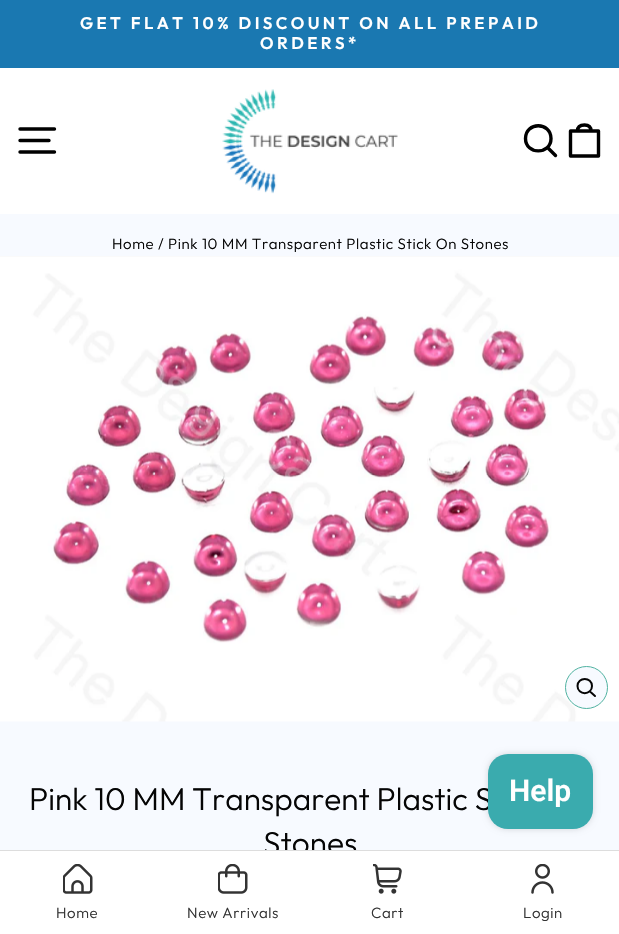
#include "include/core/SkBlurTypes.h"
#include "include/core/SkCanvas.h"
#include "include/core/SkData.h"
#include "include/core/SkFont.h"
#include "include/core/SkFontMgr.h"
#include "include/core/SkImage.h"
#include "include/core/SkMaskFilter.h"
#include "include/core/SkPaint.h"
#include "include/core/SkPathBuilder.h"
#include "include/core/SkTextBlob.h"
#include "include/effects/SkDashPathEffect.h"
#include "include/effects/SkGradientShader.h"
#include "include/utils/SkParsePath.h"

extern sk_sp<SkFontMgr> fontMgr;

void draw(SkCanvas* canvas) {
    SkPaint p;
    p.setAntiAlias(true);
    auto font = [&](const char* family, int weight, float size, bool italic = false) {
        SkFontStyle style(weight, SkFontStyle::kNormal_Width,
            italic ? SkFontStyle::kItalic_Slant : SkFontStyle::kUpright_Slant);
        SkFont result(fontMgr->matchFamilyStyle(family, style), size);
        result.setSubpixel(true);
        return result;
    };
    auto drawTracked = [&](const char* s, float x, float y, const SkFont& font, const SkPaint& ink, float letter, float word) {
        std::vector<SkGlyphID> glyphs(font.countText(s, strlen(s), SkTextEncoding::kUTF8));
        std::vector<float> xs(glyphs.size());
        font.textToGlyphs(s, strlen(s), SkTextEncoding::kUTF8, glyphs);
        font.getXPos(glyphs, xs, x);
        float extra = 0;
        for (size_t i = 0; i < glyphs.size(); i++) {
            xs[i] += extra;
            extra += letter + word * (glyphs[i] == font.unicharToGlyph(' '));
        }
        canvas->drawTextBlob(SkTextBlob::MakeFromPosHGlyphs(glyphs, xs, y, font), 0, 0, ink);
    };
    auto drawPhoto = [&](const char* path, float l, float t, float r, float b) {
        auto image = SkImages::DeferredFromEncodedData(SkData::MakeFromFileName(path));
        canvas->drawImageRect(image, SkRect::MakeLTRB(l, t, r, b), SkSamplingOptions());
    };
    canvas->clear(0xFFF7FAFF);
    p.setColor(0xFF1A78B1);
    canvas->drawRect(SkRect::MakeLTRB(0, 0, 619, 68), p);
    auto font1 = font("Outfit", 600, 16.9f);
    p.setColor(0xFFFFFFFF);
    drawTracked("GET FLAT 10% DISCOUNT ON ALL PREPAID", 80, 29, font1, p, 3.4f, 0);
    drawTracked("ORDERS*", 260, 49, font1, p, 3.4f, 0);
    canvas->drawRect(SkRect::MakeLTRB(0, 68, 619, 214), p);
    p.setStyle(SkPaint::kStroke_Style);
    p.setStrokeWidth(3.4f);
    p.setStrokeCap(SkPaint::kRound_Cap);
    p.setStrokeJoin(SkPaint::kRound_Join);
    p.setColor(0xFF000000);
    canvas->drawPath(SkPathBuilder().moveTo(20, 129).lineTo(54.5f, 129).moveTo(20, 140.5f).lineTo(49, 140.5f).moveTo(20, 152).lineTo(54.5f, 152).detach(), p);
    drawPhoto("media/1.png", 222, 89, 398, 194);
    canvas->drawPath(SkPathBuilder().moveTo(551, 138.5f).cubicTo(551, 155, 525.5f, 155, 525.5f, 138.5f).cubicTo(525.5f, 121.5f, 551, 121.5f, 551, 138.5f).close().moveTo(555.5f, 155.5f).lineTo(547.5f, 147.5f).detach(), p);
    canvas->drawPath(SkPathBuilder().moveTo(570.5f, 131).lineTo(598.5f, 131).lineTo(598.5f, 156).lineTo(570.5f, 156).close().moveTo(577.5f, 131).cubicTo(577.5f, 126, 580.5f, 125, 584.5f, 125).cubicTo(588, 125, 591, 126, 591, 131).detach(), p);
    auto font2 = font("Outfit", 300, 15);
    p.setStyle(SkPaint::kFill_Style);
    p.setColor(0xFF050505);
    drawTracked("Home / Pink 10 MM Transparent Plastic Stick On Stones", 112, 249, font2, p, 0.58f, 0);
    p.setColor(0xFFF1F1F1);
    canvas->drawRect(SkRect::MakeLTRB(0, 256, 619, 721), p);
    drawPhoto("media/2.png", 0, 256, 619, 722);
    p.setColor(0xFFF7FAFF);
    canvas->drawCircle(586.5f, 687.5f, 21, p);
    p.setStyle(SkPaint::kStroke_Style);
    p.setStrokeWidth(1);
    p.setStrokeCap(SkPaint::kButt_Cap);
    p.setStrokeJoin(SkPaint::kMiter_Join);
    p.setColor(0xFF4FB2A0);
    canvas->drawCircle(586.5f, 687.5f, 21, p);
    p.setStrokeWidth(2);
    p.setStrokeCap(SkPaint::kRound_Cap);
    p.setStrokeJoin(SkPaint::kRound_Join);
    p.setColor(0xFF050505);
    canvas->drawPath(SkPathBuilder().moveTo(592, 686).cubicTo(592, 695.5f, 577.5f, 695.5f, 577.5f, 686).cubicTo(577.5f, 676.5f, 592, 676.5f, 592, 686).close().moveTo(595, 696).lineTo(590, 691.5f).detach(), p);
    auto font3 = font("Outfit", 300, 31.6f);
    p.setStyle(SkPaint::kFill_Style);
    canvas->drawString("Pink 10 MM Transparent Plastic S", 29, 810, font3, p);
    canvas->drawString("Stones", 263, 854, font3, p);
    p.setColor(0xFFFFFFFF);
    canvas->drawRect(SkRect::MakeLTRB(0, 851, 619, 934), p);
    p.setColor(0xFFDDDDDD);
    canvas->drawRect(SkRect::MakeLTRB(0, 850, 619, 851), p);
    drawPhoto("media/3.png", 63, 864, 93, 894);
    p.setColor(0xFF333333);
    drawTracked("Home", 56, 918, font2, p, 0.58f, 0);
    drawPhoto("media/4.png", 218, 864, 248, 894);
    drawTracked("New Arrivals", 187, 918, font2, p, 0.58f, 0);
    drawPhoto("media/5.png", 373, 864, 402, 894);
    drawTracked("Cart", 371, 918, font2, p, 0.58f, 0);
    drawPhoto("media/6.png", 531, 864, 554, 894);
    drawTracked("Login", 523, 918, font2, p, 0.58f, 0);
    p.setColor(0x26000000);
    p.setMaskFilter(SkMaskFilter::MakeBlur(kNormal_SkBlurStyle, 3));
    canvas->drawRoundRect(SkRect::MakeLTRB(488, 754, 593, 829), 20, 20, p);
    p.setMaskFilter(nullptr);
    p.setColor(0xFF3AABAE);
    canvas->drawRoundRect(SkRect::MakeLTRB(488, 754, 593, 829), 20, 20, p);
    auto font4 = font("Roboto", 600, 30);
    p.setColor(0xFFFFFFFF);
    canvas->drawString("Help", 509, 801, font4, p);
}
